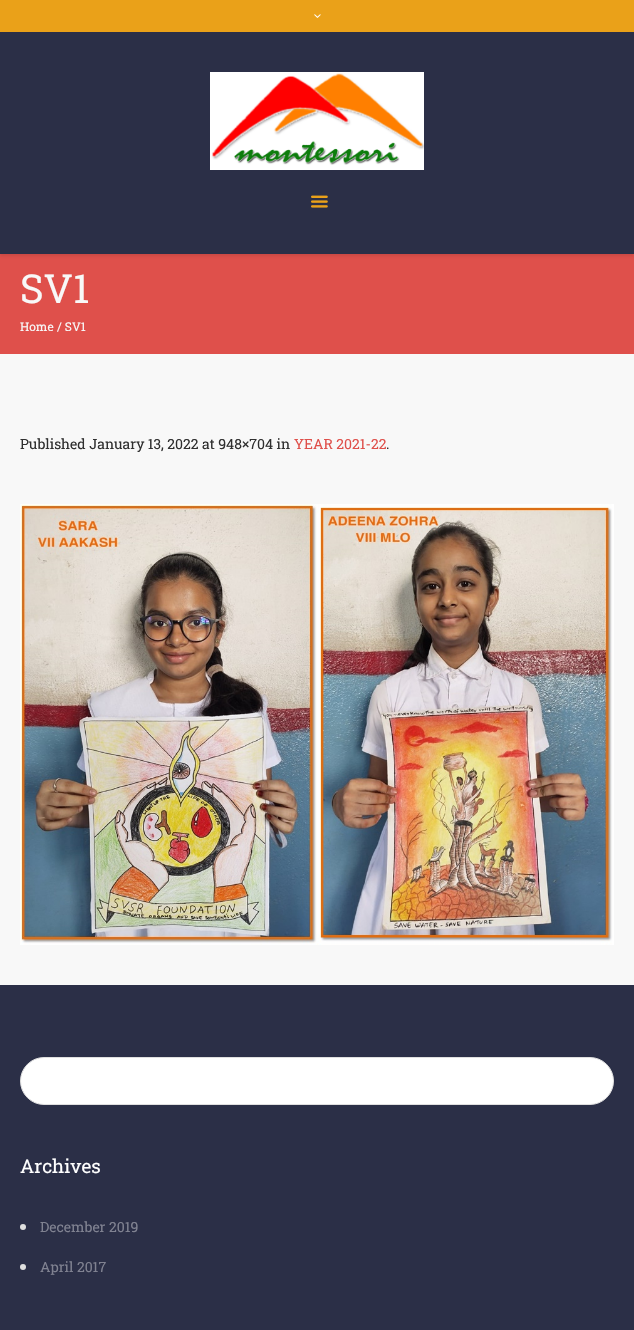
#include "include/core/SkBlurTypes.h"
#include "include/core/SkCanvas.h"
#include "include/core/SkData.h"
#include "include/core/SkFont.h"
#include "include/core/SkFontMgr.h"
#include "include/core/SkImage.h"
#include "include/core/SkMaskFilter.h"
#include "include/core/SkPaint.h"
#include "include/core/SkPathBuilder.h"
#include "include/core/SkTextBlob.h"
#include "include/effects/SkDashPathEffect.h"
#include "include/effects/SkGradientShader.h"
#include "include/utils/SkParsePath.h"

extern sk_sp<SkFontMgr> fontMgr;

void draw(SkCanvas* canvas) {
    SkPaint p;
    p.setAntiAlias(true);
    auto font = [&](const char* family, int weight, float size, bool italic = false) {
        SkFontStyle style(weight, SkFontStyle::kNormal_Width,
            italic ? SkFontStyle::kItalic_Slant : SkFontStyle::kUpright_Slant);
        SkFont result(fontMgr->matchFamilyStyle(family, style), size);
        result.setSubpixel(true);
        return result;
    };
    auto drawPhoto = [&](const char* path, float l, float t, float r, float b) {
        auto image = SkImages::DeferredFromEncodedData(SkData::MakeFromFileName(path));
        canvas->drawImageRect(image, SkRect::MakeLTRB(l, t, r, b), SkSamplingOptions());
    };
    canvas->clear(0xFFF8F8F8);
    p.setColor(0xFFDF504B);
    canvas->drawRect(SkRect::MakeLTRB(0, 254, 634, 354), p);
    p.setColor(0x1A000000);
    p.setMaskFilter(SkMaskFilter::MakeBlur(kNormal_SkBlurStyle, 1.5f));
    canvas->drawRect(SkRect::MakeLTRB(0, 2, 634, 256), p);
    p.setMaskFilter(nullptr);
    p.setColor(0xFFEAA119);
    canvas->drawRect(SkRect::MakeLTRB(0, 0, 634, 32), p);
    drawPhoto("media/1.png", 314, 14, 321, 18);
    p.setColor(0xFF2B2F47);
    canvas->drawRect(SkRect::MakeLTRB(0, 32, 634, 254), p);
    drawPhoto("media/2.png", 210, 72, 424, 170);
    drawPhoto("media/3.png", 311, 195, 328, 208);
    auto font1 = font("Roboto Slab", 400, 40);
    p.setColor(0xFFF8F8F8);
    canvas->drawString("SV1", 20, 303, font1, p);
    auto font2 = font("Roboto Slab", 400, 12);
    canvas->drawString("Home", 20, 331, font2, p);
    canvas->drawString("/ SV1", 57, 331, font2, p);
    auto font3 = font("Roboto Slab", 400, 14);
    p.setColor(0xFF2F2F2F);
    canvas->drawString("Published January 13, 2022 at 948×704 in", 20, 449, font3, p);
    p.setColor(0xFFDF504B);
    canvas->drawString("YEAR 2021-22", 294, 449, font3, p);
    p.setColor(0xFF2F2F2F);
    canvas->drawString(".", 386, 449, font3, p);
    drawPhoto("media/4.png", 20, 504, 614, 945);
    p.setColor(0xFF2B2F47);
    canvas->drawRect(SkRect::MakeLTRB(0, 985, 634, 1330), p);
    p.setColor(0xFFFFFFFF);
    canvas->drawRoundRect(SkRect::MakeLTRB(20.5f, 1057.5f, 613.5f, 1104.5f), 23.5f, 23.5f, p);
    p.setStyle(SkPaint::kStroke_Style);
    p.setStrokeWidth(1);
    p.setColor(0xFFDFDFDF);
    canvas->drawRoundRect(SkRect::MakeLTRB(20.5f, 1057.5f, 613.5f, 1104.5f), 23.5f, 23.5f, p);
    auto font4 = font("Roboto Slab", 400, 19);
    p.setStyle(SkPaint::kFill_Style);
    p.setColor(0xFFFFFFFF);
    canvas->drawString("Archives", 20, 1173, font4, p);
    p.setColor(0xFFDFDFDF);
    canvas->drawCircle(23, 1227, 3, p);
    p.setColor(0xFF808291);
    canvas->drawString("December 2019", 40, 1232, font3, p);
    p.setColor(0xFFDFDFDF);
    canvas->drawCircle(23, 1267, 3, p);
    p.setColor(0xFF808291);
    canvas->drawString("April 2017", 40, 1272, font3, p);
}
